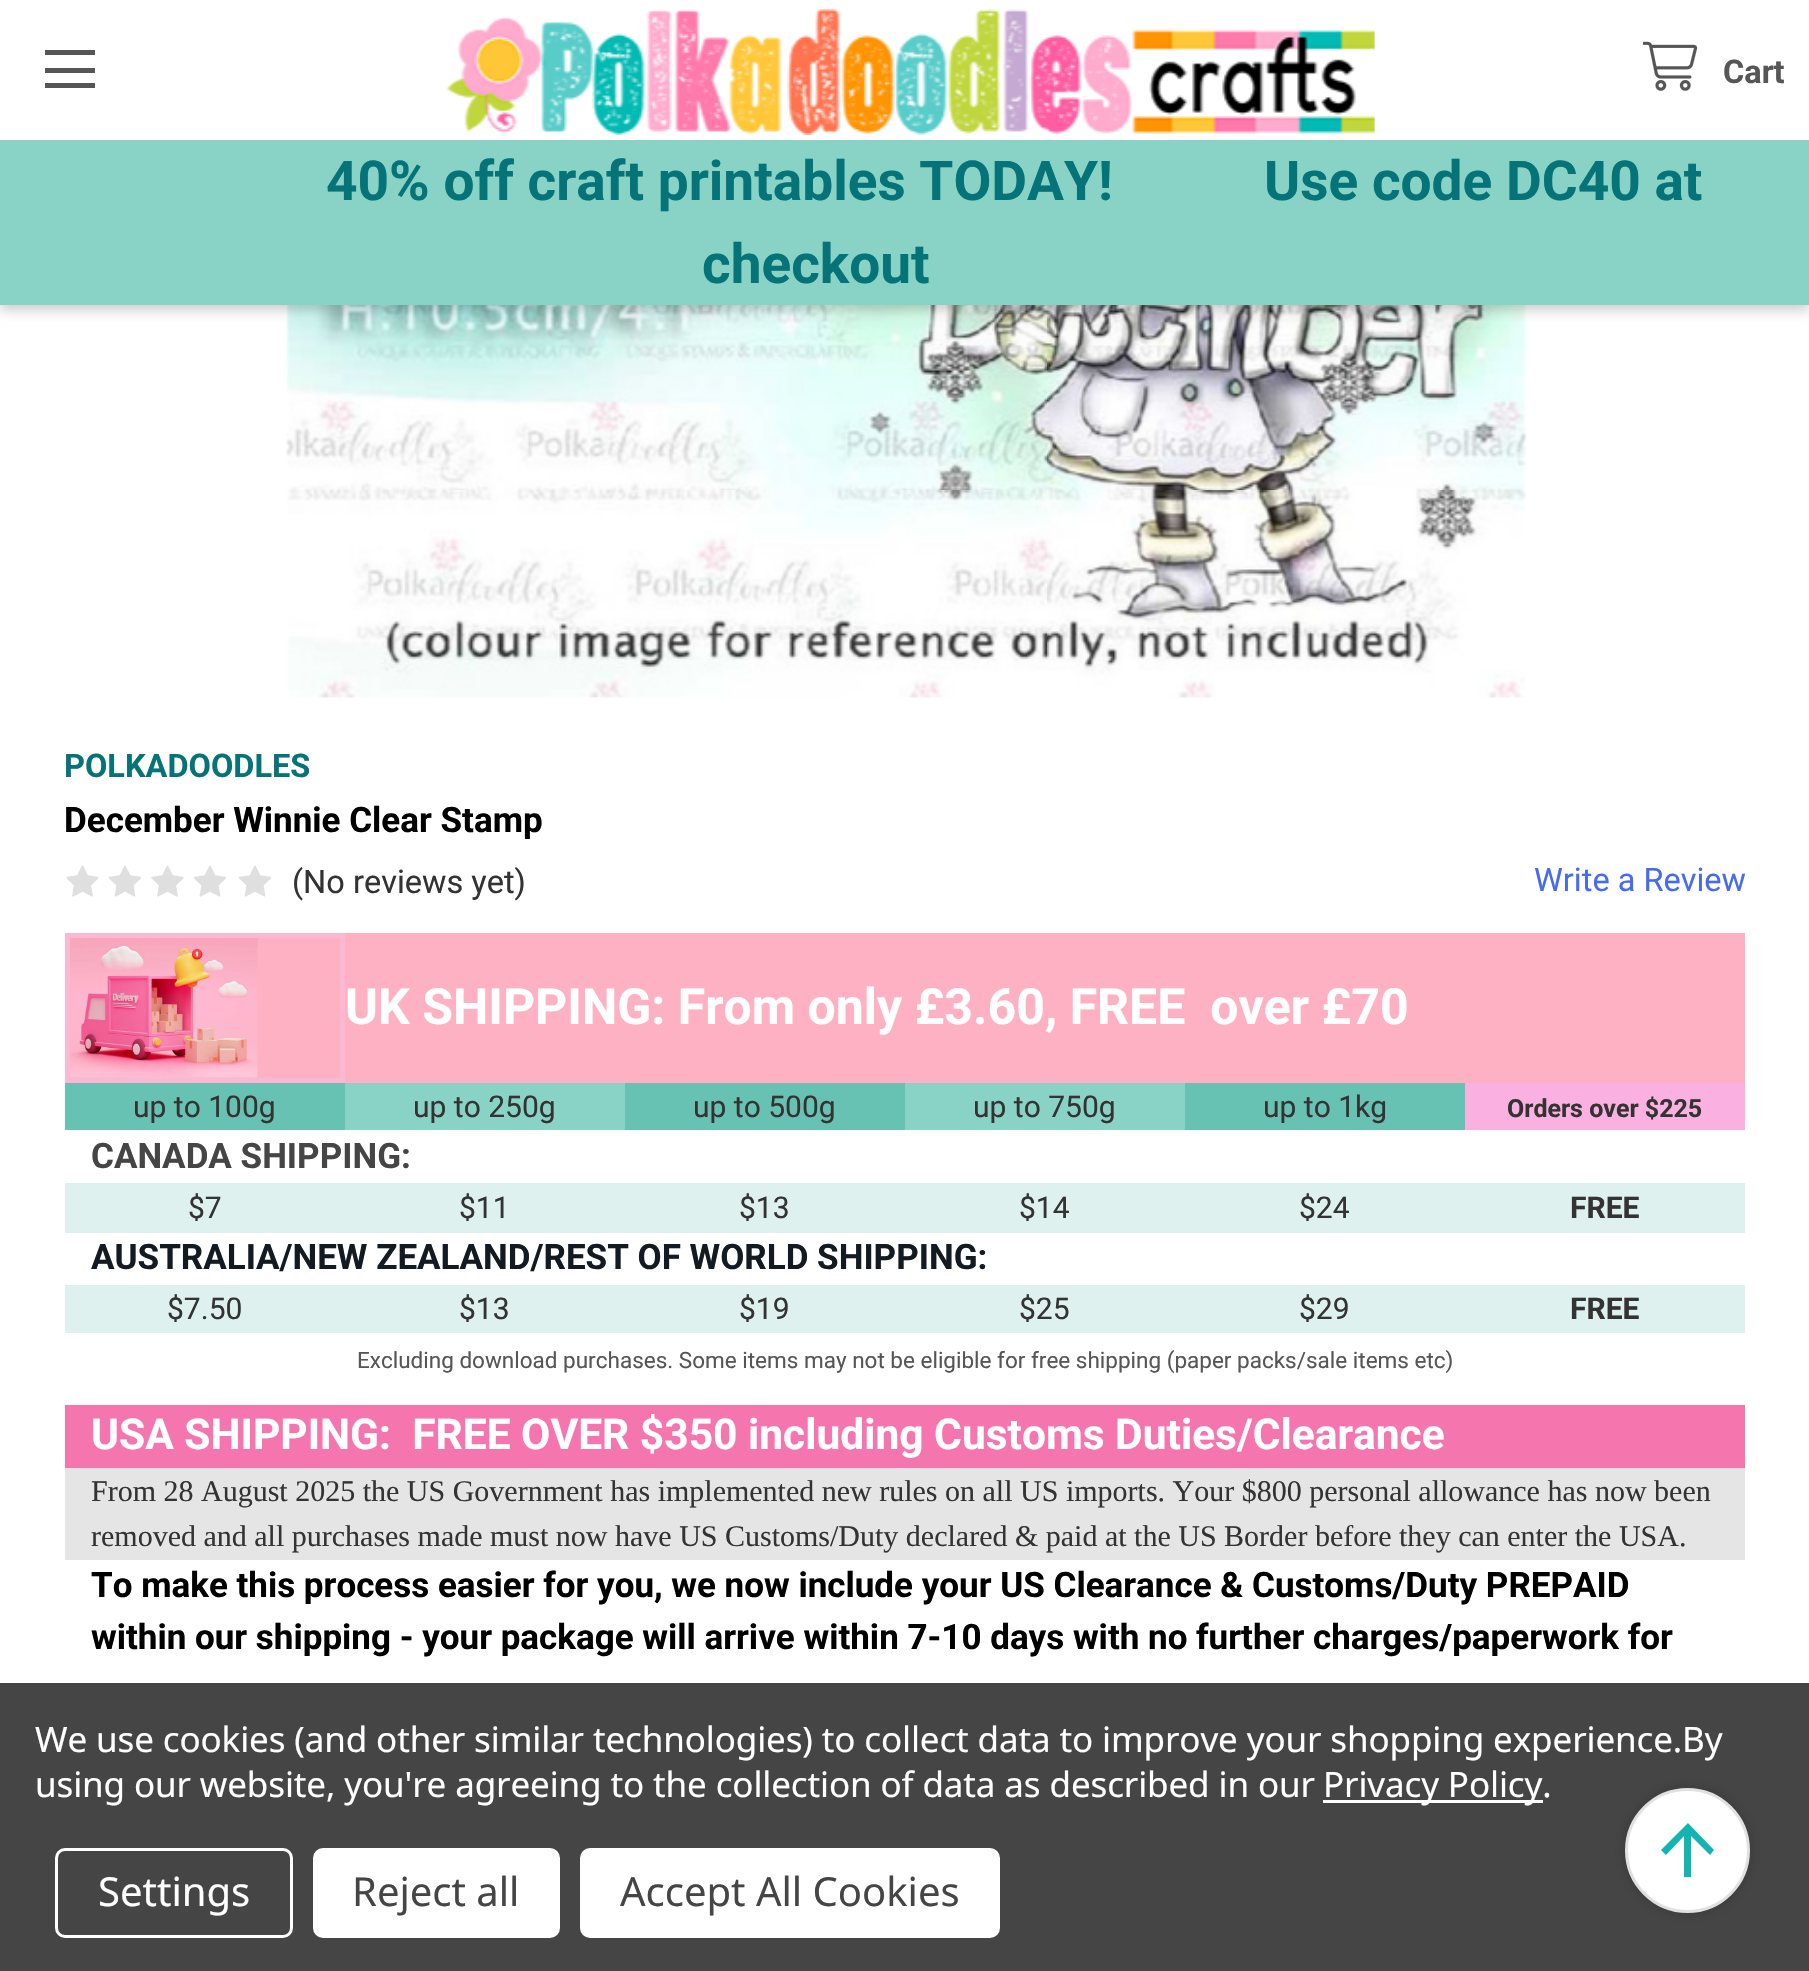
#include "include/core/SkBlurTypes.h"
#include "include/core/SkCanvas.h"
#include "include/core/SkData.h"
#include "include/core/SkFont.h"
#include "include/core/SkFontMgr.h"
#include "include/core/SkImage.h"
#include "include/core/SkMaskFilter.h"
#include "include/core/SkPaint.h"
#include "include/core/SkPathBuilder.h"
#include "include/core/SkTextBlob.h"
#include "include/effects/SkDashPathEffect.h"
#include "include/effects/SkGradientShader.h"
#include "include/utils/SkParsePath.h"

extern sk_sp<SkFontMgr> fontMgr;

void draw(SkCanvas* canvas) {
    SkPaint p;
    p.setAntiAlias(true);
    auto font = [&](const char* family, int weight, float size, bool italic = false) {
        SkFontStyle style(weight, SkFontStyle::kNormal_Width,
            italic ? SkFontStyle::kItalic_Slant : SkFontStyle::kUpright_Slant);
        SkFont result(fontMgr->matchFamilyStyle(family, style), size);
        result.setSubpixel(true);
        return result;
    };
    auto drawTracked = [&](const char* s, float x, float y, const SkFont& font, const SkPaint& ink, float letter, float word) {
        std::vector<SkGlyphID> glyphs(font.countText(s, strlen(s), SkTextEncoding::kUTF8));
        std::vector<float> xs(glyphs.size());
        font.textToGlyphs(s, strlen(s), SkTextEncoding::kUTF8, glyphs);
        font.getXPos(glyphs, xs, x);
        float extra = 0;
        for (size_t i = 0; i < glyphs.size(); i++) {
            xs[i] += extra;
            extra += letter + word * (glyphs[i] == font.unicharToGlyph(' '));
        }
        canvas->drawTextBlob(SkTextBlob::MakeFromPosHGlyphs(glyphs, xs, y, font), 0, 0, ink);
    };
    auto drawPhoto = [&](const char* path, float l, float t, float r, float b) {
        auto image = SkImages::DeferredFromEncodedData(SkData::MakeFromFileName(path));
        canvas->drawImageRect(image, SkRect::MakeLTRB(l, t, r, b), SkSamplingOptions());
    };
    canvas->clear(0xFFFFFFFF);
    drawPhoto("media/3.png", 286, 305, 1527, 698);
    p.setColor(0x33000000);
    p.setMaskFilter(SkMaskFilter::MakeBlur(kNormal_SkBlurStyle, 6));
    canvas->drawRect(SkRect::MakeLTRB(0, 5, 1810, 310), p);
    p.setMaskFilter(nullptr);
    {
        const struct { float l, t, r, b; SkColor color; } items[] = {
            {0, 0, 1809, 140, 0xFFFFFFFF},
            {45, 68, 95, 73, 0xFF565656},
            {45, 50, 95, 55, 0xFF565656},
            {45, 83, 95, 88, 0xFF565656},
        };
        for (auto [l, t, r, b, color] : items) {
            p.setColor(color);
            canvas->drawRect(SkRect::MakeLTRB(l, t, r, b), p);
        }
    }
    drawPhoto("media/1.png", 446, 9, 1375, 135);
    drawPhoto("media/2.png", 1643, 41, 1698, 91);
    auto font1 = font("Roboto", 700, 32.5f);
    canvas->drawString("Cart", 1723, 83, font1, p);
    p.setColor(0xFF88D2C6);
    canvas->drawRect(SkRect::MakeLTRB(0, 140, 1809, 305), p);
    auto font2 = font("Roboto", 700, 55);
    p.setColor(0xFF057378);
    {
        const struct { const char* s; float x, y; } items[] = {
            {"40% off craft printables TODAY!", 326, 200},
            {"Use code DC40 at", 1264, 200},
            {"checkout", 702, 283},
        };
        for (auto [s, x, y] : items) {
            canvas->drawString(s, x, y, font2, p);
        }
    }
    canvas->drawString("POLKADOODLES", 64, 777, font1, p);
    auto font3 = font("Roboto", 700, 35);
    p.setColor(0xFF000000);
    canvas->drawString("December Winnie Clear Stamp", 64, 832, font3, p);
    drawPhoto("media/4.png", 66, 865, 99, 897);
    drawPhoto("media/5.png", 108, 865, 142, 897);
    drawPhoto("media/4.png", 151, 865, 184, 897);
    drawPhoto("media/5.png", 193, 865, 227, 897);
    drawPhoto("media/5.png", 238, 865, 272, 897);
    auto font4 = font("Roboto", 400, 32.5f);
    p.setColor(0xFF333333);
    canvas->drawString("(No reviews yet)", 292, 893, font4, p);
    p.setColor(0xFF476BEF);
    canvas->drawString("Write a Review", 1534, 891, font4, p);
    p.setColor(0xFFFFB1C4);
    canvas->drawRect(SkRect::MakeLTRB(70, 933, 1745, 1083), p);
    drawPhoto("media/6.png", 70, 938, 258, 1078);
    p.setStyle(SkPaint::kStroke_Style);
    p.setStrokeWidth(5);
    p.setColor(0xFFFCB8D3);
    canvas->drawRect(SkRect::MakeLTRB(67.5f, 935.5f, 342.5f, 1080.5f), p);
    auto font5 = font("Roboto", 700, 50);
    p.setStyle(SkPaint::kFill_Style);
    p.setColor(0xFFFFFFFF);
    canvas->drawString("UK SHIPPING: From only £3.60, FREE  over £70", 345, 1024, font5, p);
    p.setColor(0xFF67C2B3);
    canvas->drawRect(SkRect::MakeLTRB(65, 1083, 345, 1130), p);
    auto font6 = font("Roboto", 400, 30);
    p.setColor(0xFF333333);
    canvas->drawString("up to 100g", 133, 1117, font6, p);
    p.setColor(0xFF88D2C6);
    canvas->drawRect(SkRect::MakeLTRB(345, 1083, 625, 1130), p);
    p.setColor(0xFF333333);
    canvas->drawString("up to 250g", 413, 1117, font6, p);
    p.setColor(0xFF67C2B3);
    canvas->drawRect(SkRect::MakeLTRB(625, 1083, 905, 1130), p);
    p.setColor(0xFF333333);
    canvas->drawString("up to 500g", 693, 1117, font6, p);
    p.setColor(0xFF88D2C6);
    canvas->drawRect(SkRect::MakeLTRB(905, 1083, 1185, 1130), p);
    p.setColor(0xFF333333);
    canvas->drawString("up to 750g", 973, 1117, font6, p);
    p.setColor(0xFF67C2B3);
    canvas->drawRect(SkRect::MakeLTRB(1185, 1083, 1465, 1130), p);
    p.setColor(0xFF333333);
    canvas->drawString("up to 1kg", 1263, 1117, font6, p);
    p.setColor(0xFFFAB1E1);
    canvas->drawRect(SkRect::MakeLTRB(1465, 1083, 1745, 1130), p);
    auto font7 = font("Roboto", 700, 25);
    p.setColor(0xFF333333);
    canvas->drawString("Orders over $225", 1507, 1117, font7, p);
    p.setColor(0xFF454545);
    canvas->drawString("CANADA SHIPPING:", 91, 1168, font3, p);
    p.setColor(0xFFDEF1EE);
    canvas->drawRect(SkRect::MakeLTRB(65, 1183, 1745, 1233), p);
    p.setColor(0xFF333333);
    {
        const struct { const char* s; float x, y; } items[] = {
            {"$7", 188, 1218},
            {"$11", 459, 1218},
            {"$13", 739, 1218},
            {"$14", 1019, 1218},
            {"$24", 1299, 1218},
        };
        for (auto [s, x, y] : items) {
            canvas->drawString(s, x, y, font6, p);
        }
    }
    auto font8 = font("Roboto", 700, 30);
    canvas->drawString("FREE", 1570, 1218, font8, p);
    p.setColor(0xFF131A22);
    canvas->drawString("AUSTRALIA/NEW ZEALAND/REST OF WORLD SHIPPING:", 91, 1269, font3, p);
    p.setColor(0xFFDEF1EE);
    canvas->drawRect(SkRect::MakeLTRB(65, 1285, 1745, 1333), p);
    p.setColor(0xFF333333);
    {
        const struct { const char* s; float x, y; } items[] = {
            {"$7.50", 167, 1319},
            {"$13", 459, 1319},
            {"$19", 739, 1319},
            {"$25", 1019, 1319},
            {"$29", 1299, 1319},
        };
        for (auto [s, x, y] : items) {
            canvas->drawString(s, x, y, font6, p);
        }
    }
    canvas->drawString("FREE", 1570, 1319, font8, p);
    auto font9 = font("Roboto", 400, 22.5f);
    p.setColor(0xFF565656);
    canvas->drawString("Excluding download purchases. Some items may not be eligible for free shipping (paper packs/sale items etc)", 357, 1368, font9, p);
    p.setColor(0xFFF575AF);
    canvas->drawRect(SkRect::MakeLTRB(65, 1405, 1745, 1468), p);
    auto font10 = font("Roboto", 700, 42.5f);
    p.setColor(0xFFFFFFFF);
    canvas->drawString("USA SHIPPING:  FREE OVER $350 including Customs Duties/Clearance", 91, 1449, font10, p);
    p.setColor(0xFFE5E5E5);
    canvas->drawRect(SkRect::MakeLTRB(65, 1468, 1745, 1560), p);
    auto font11 = font("Liberation Serif", 400, 30);
    p.setColor(0xFF333333);
    canvas->drawString("From 28 August 2025 the US Government has implemented new rules on all US imports. Your $800 personal allowance has now been", 91, 1501, font11, p);
    canvas->drawString("removed and all purchases made must now have US Customs/Duty declared & paid at the US Border before they can enter the USA.", 91, 1546, font11, p);
    p.setColor(0xFF000000);
    canvas->drawString("To make this process easier for you, we now include your US Clearance & Customs/Duty PREPAID", 91, 1597, font3, p);
    canvas->drawString("within our shipping - your package will arrive within 7-10 days with no further charges/paperwork for", 91, 1649, font3, p);
    p.setColor(0xFF454545);
    canvas->drawRect(SkRect::MakeLTRB(0, 1683, 1809, 1971), p);
    auto font12 = font("Noto Sans", 400, 35);
    p.setColor(0xFFFFFFFF);
    drawTracked("We use cookies (and other similar technologies) to collect data to improve your shopping experience.By", 35, 1752, font12, p, -0.12f, 0);
    drawTracked("using our website, you're agreeing to the collection of data as described in our", 35, 1797, font12, p, -0.12f, 0);
    canvas->drawRect(SkRect::MakeLTRB(1323, 1800, 1543, 1803), p);
    drawTracked("Privacy Policy.", 1323, 1797, font12, p, -0.12f, 0);
    p.setStyle(SkPaint::kStroke_Style);
    p.setStrokeWidth(3);
    canvas->drawRoundRect(SkRect::MakeLTRB(56.5f, 1849.5f, 291.5f, 1936.5f), 8.5f, 8.5f, p);
    auto font13 = font("Noto Sans", 400, 40);
    p.setStyle(SkPaint::kFill_Style);
    canvas->drawString("Settings", 98, 1906, font13, p);
    canvas->drawRoundRect(SkRect::MakeLTRB(313, 1848, 560, 1938), 10, 10, p);
    p.setColor(0xFF454545);
    canvas->drawString("Reject all", 352, 1906, font13, p);
    p.setColor(0xFFFFFFFF);
    canvas->drawRoundRect(SkRect::MakeLTRB(580, 1848, 1000, 1938), 10, 10, p);
    p.setColor(0xFF454545);
    canvas->drawString("Accept All Cookies", 620, 1906, font13, p);
    p.setColor(0x33000000);
    p.setMaskFilter(SkMaskFilter::MakeBlur(kNormal_SkBlurStyle, 6));
    canvas->drawRoundRect(SkRect::MakeLTRB(1625, 1788, 1750, 1913), 62.5f, 62.5f, p);
    p.setMaskFilter(nullptr);
    p.setColor(0xFFFFFFFF);
    canvas->drawCircle(1687.5f, 1850.5f, 61, p);
    p.setStyle(SkPaint::kStroke_Style);
    p.setColor(0xFFE0E0E0);
    canvas->drawCircle(1687.5f, 1850.5f, 61, p);
    p.setStyle(SkPaint::kFill_Style);
    p.setColor(0xFF12B5B2);
    canvas->drawPath(SkPathBuilder().moveTo(1684, 1877).lineTo(1684, 1836).lineTo(1666, 1855).lineTo(1661, 1850).lineTo(1688, 1823).lineTo(1714, 1850).lineTo(1710, 1855).lineTo(1691, 1836).lineTo(1691, 1877).close().detach(), p);
}
